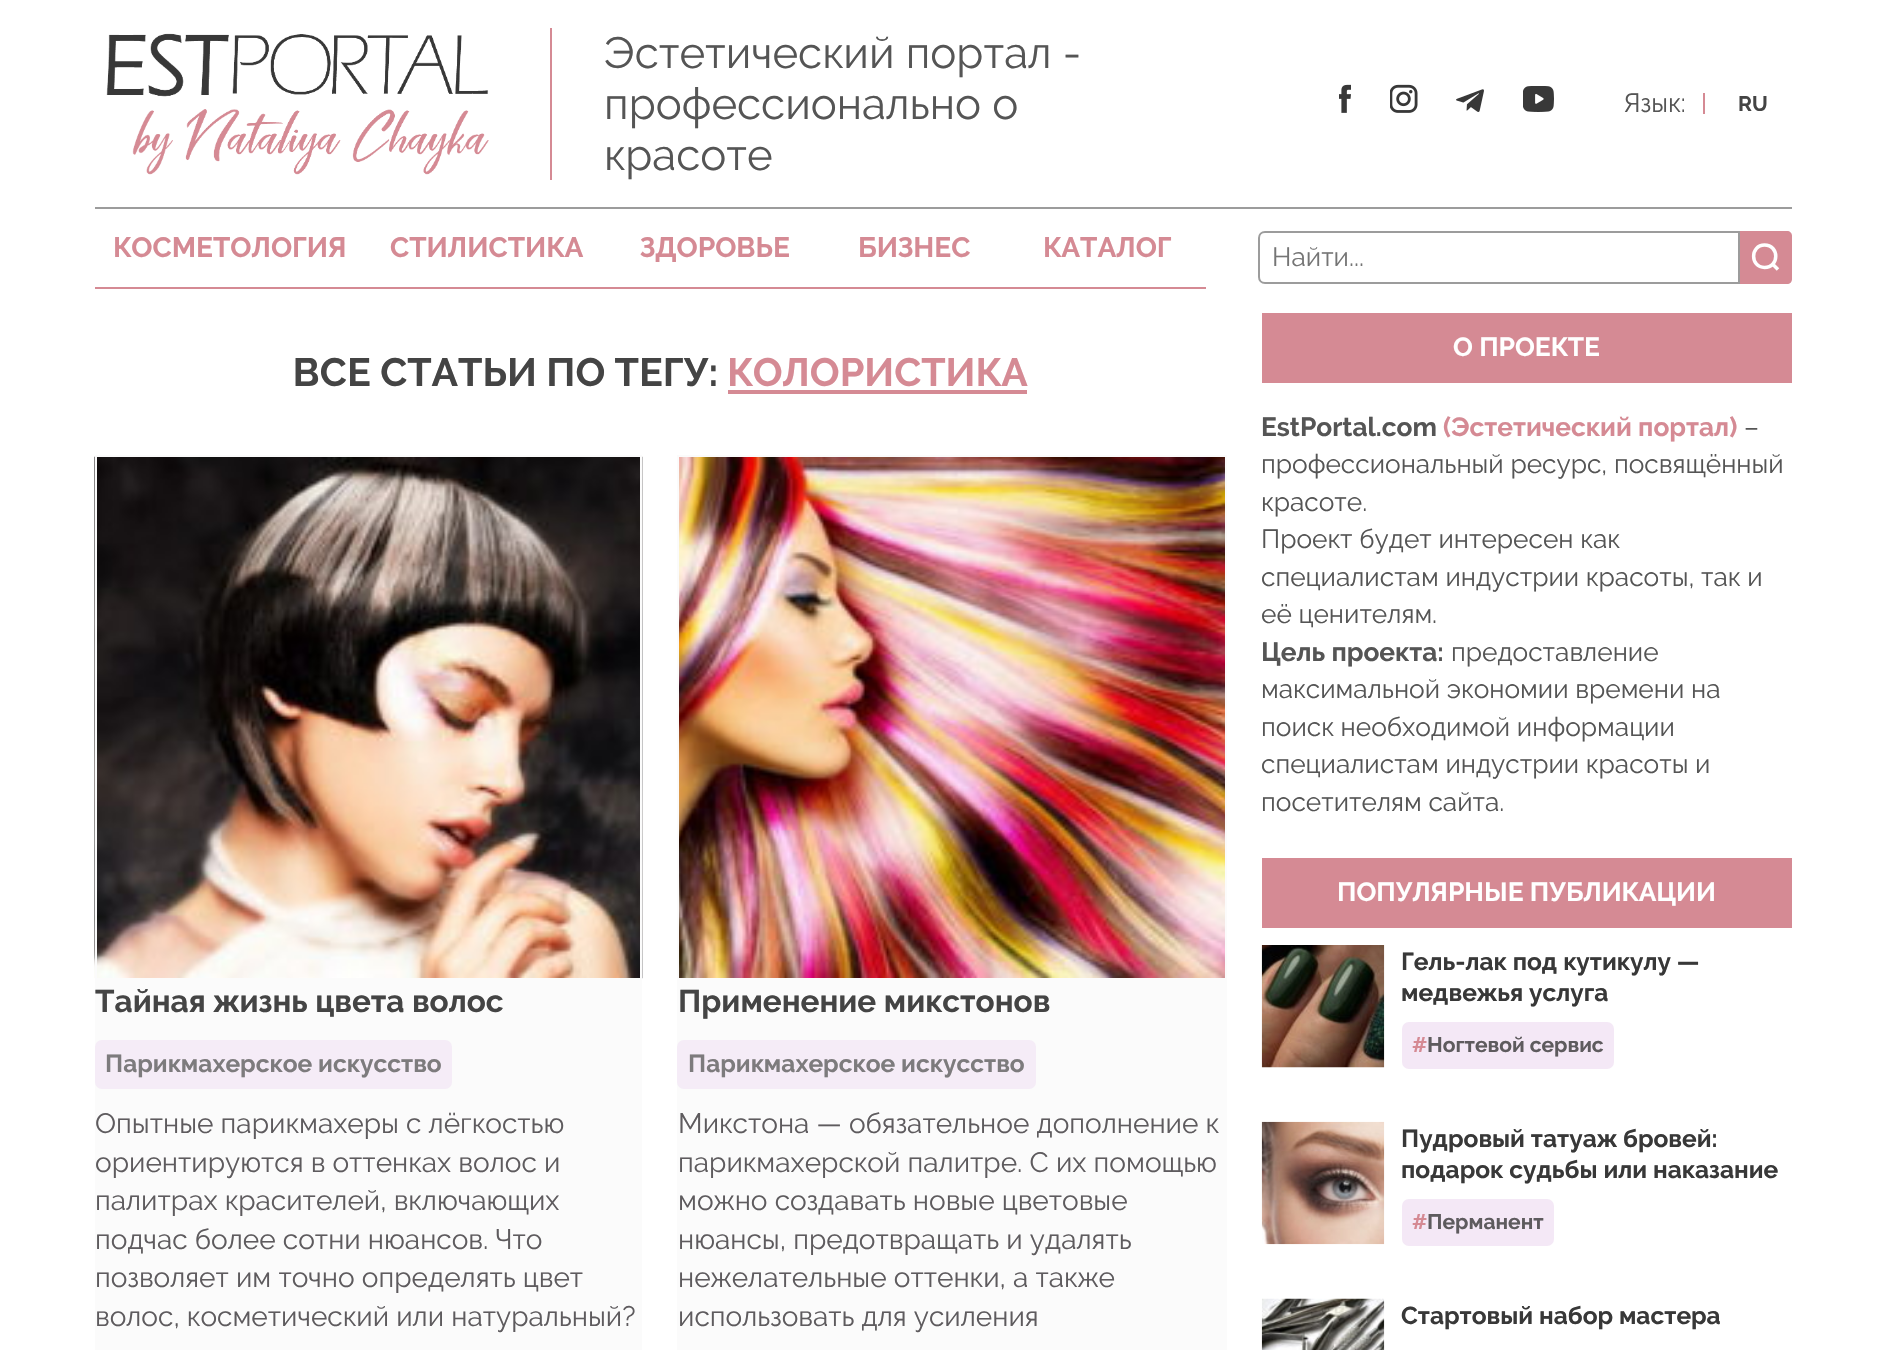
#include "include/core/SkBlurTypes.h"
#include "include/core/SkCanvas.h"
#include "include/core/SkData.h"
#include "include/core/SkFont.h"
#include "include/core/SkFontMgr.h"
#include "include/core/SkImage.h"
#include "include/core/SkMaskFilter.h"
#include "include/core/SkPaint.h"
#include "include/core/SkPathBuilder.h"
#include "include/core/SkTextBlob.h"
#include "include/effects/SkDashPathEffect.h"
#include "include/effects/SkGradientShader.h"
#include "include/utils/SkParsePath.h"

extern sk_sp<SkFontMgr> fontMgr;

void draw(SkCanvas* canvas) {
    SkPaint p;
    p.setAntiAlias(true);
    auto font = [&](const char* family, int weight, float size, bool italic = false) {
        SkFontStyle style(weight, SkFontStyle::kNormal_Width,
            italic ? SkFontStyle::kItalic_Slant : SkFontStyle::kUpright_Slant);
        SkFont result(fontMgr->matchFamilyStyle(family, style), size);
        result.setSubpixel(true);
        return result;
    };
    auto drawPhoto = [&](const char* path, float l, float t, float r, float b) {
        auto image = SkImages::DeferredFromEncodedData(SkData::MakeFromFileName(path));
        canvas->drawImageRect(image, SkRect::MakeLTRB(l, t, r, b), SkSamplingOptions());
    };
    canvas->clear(0xFFFFFFFF);
    drawPhoto("media/1.png", 106, 33, 489, 175);
    p.setColor(0xFFD58A94);
    canvas->drawRect(SkRect::MakeLTRB(550, 28, 552, 180), p);
    auto font1 = font("Raleway", 400, 43.75f);
    p.setColor(0xFF555555);
    {
        const struct { const char* s; float x, y; } items[] = {
            {"Эстетический портал -", 604, 68},
            {"профессионально о", 604, 119},
            {"красоте", 604, 170},
        };
        for (auto [s, x, y] : items) {
            canvas->drawString(s, x, y, font1, p);
        }
    }
    drawPhoto("media/2.png", 1339, 84, 1351, 113);
    drawPhoto("media/3.png", 1390, 84, 1418, 113);
    drawPhoto("media/4.png", 1456, 89, 1484, 112);
    drawPhoto("media/5.png", 1523, 86, 1554, 112);
    auto font2 = font("Raleway", 400, 26.25f);
    canvas->drawString("Язык:", 1624, 112, font2, p);
    p.setColor(0xFFD58A94);
    canvas->drawRect(SkRect::MakeLTRB(1703, 93, 1705, 114), p);
    auto font3 = font("Raleway", 700, 21);
    p.setColor(0xFF444444);
    canvas->drawString("RU", 1738, 111, font3, p);
    p.setColor(0xFF9C9C9C);
    canvas->drawRect(SkRect::MakeLTRB(95, 207, 1792, 209), p);
    p.setColor(0xFFD58A94);
    canvas->drawRect(SkRect::MakeLTRB(95, 287, 1206, 289), p);
    auto font4 = font("Raleway", 700, 28);
    {
        const struct { const char* s; float x, y; } items[] = {
            {"КОСМЕТОЛОГИЯ", 113, 257},
            {"СТИЛИСТИКА", 390, 257},
            {"ЗДОРОВЬЕ", 640, 257},
            {"БИЗНЕС", 858, 257},
            {"КАТАЛОГ", 1043, 257},
        };
        for (auto [s, x, y] : items) {
            canvas->drawString(s, x, y, font4, p);
        }
    }
    p.setStyle(SkPaint::kStroke_Style);
    p.setStrokeWidth(2);
    p.setColor(0xFF9C9C9C);
    canvas->drawPath(SkPathBuilder().moveTo(1265, 232).lineTo(1739, 232).lineTo(1739, 283).lineTo(1265, 283).cubicTo(1261.5f, 283, 1259, 280.5f, 1259, 277).lineTo(1259, 238).cubicTo(1259, 234.5f, 1261.5f, 232, 1265, 232).close().detach(), p);
    p.setStyle(SkPaint::kFill_Style);
    p.setColor(0xFF757575);
    canvas->drawString("Найти...", 1272, 266, font2, p);
    p.setColor(0xFFD58A94);
    canvas->drawPath(SkPathBuilder().moveTo(1740, 231).lineTo(1787, 231).cubicTo(1790, 231, 1792, 233, 1792, 236).lineTo(1792, 279).cubicTo(1792, 282, 1790, 284, 1787, 284).lineTo(1740, 284).close().detach(), p);
    p.setStyle(SkPaint::kStroke_Style);
    p.setStrokeWidth(3.5f);
    p.setColor(0xFFFFFFFF);
    canvas->drawPath(SkPathBuilder().moveTo(1772.5f, 264).lineTo(1778, 269.5f).moveTo(1764.5f, 267.5f).cubicTo(1750, 267.5f, 1750, 245, 1764.5f, 245).cubicTo(1779.5f, 245, 1779.5f, 267.5f, 1764.5f, 267.5f).close().detach(), p);
    auto font5 = font("Raleway", 700, 39.4f);
    p.setStyle(SkPaint::kFill_Style);
    p.setColor(0xFF444444);
    canvas->drawString("ВСЕ СТАТЬИ ПО ТЕГУ:", 293, 386, font5, p);
    p.setColor(0xFFD58A94);
    canvas->drawString("КОЛОРИСТИКА", 727, 386, font5, p);
    canvas->drawRect(SkRect::MakeLTRB(728, 390, 1027, 394), p);
    p.setColor(0xFFFBFBFB);
    canvas->drawRect(SkRect::MakeLTRB(95, 980, 642, 1350), p);
    drawPhoto("media/6.png", 94, 456, 643, 979);
    p.setStyle(SkPaint::kStroke_Style);
    p.setStrokeWidth(2);
    canvas->drawRect(SkRect::MakeLTRB(96, 456, 641, 979), p);
    auto font6 = font("Raleway", 700, 31.5f);
    p.setStyle(SkPaint::kFill_Style);
    p.setColor(0xFF444444);
    canvas->drawString("Тайная жизнь цвета волос", 95, 1012, font6, p);
    p.setColor(0xFFF5ECF7);
    canvas->drawRoundRect(SkRect::MakeLTRB(95, 1040, 452, 1089), 7, 7, p);
    auto font7 = font("Raleway", 700, 24.5f);
    p.setColor(0xFF7D7B7D);
    canvas->drawString("Парикмахерское искусство", 105, 1072, font7, p);
    auto font8 = font("Raleway", 400, 28);
    p.setColor(0xFF5E5B5E);
    {
        const struct { const char* s; float x, y; } items[] = {
            {"Опытные парикмахеры с лёгкостью", 95, 1133},
            {"ориентируются в оттенках волос и", 95, 1172},
            {"палитрах красителей, включающих", 95, 1210},
            {"подчас более сотни нюансов. Что", 95, 1249},
            {"позволяет им точно определять цвет", 95, 1287},
            {"волос, косметический или натуральный?", 95, 1326},
        };
        for (auto [s, x, y] : items) {
            canvas->drawString(s, x, y, font8, p);
        }
    }
    p.setColor(0xFFFBFBFB);
    canvas->drawRect(SkRect::MakeLTRB(677, 980, 1227, 1350), p);
    drawPhoto("media/7.png", 679, 457, 1225, 978);
    p.setStyle(SkPaint::kStroke_Style);
    canvas->drawRect(SkRect::MakeLTRB(678, 456, 1226, 979), p);
    p.setStyle(SkPaint::kFill_Style);
    p.setColor(0xFF444444);
    canvas->drawString("Применение микстонов", 678, 1012, font6, p);
    p.setColor(0xFFF5ECF7);
    canvas->drawRoundRect(SkRect::MakeLTRB(677, 1040, 1036, 1089), 7, 7, p);
    p.setColor(0xFF7D7B7D);
    canvas->drawString("Парикмахерское искусство", 688, 1072, font7, p);
    p.setColor(0xFF5E5B5E);
    {
        const struct { const char* s; float x, y; } items[] = {
            {"Микстона — обязательное дополнение к", 678, 1133},
            {"парикмахерской палитре. С их помощью", 678, 1172},
            {"можно создавать новые цветовые", 678, 1210},
            {"нюансы, предотвращать и удалять", 678, 1249},
            {"нежелательные оттенки, а также", 678, 1287},
            {"использовать для усиления", 678, 1326},
        };
        for (auto [s, x, y] : items) {
            canvas->drawString(s, x, y, font8, p);
        }
    }
    p.setColor(0xFFD58A94);
    canvas->drawRect(SkRect::MakeLTRB(1262, 313, 1792, 383), p);
    auto font9 = font("Raleway", 700, 26.25f);
    p.setColor(0xFFFFFFFF);
    canvas->drawString("О ПРОЕКТЕ", 1453, 356, font9, p);
    p.setColor(0xFF555555);
    canvas->drawString("EstPortal.com", 1261, 436, font9, p);
    p.setColor(0xFFD58A94);
    canvas->drawString("(Эстетический портал)", 1443, 436, font9, p);
    p.setColor(0xFF555555);
    {
        const struct { const char* s; float x, y; } items[] = {
            {"–", 1744, 436},
            {"профессиональный ресурс, посвящённый", 1261, 473},
            {"красоте.", 1261, 511},
            {"Проект будет интересен как", 1261, 548},
            {"специалистам индустрии красоты, так и", 1261, 586},
            {"её ценителям.", 1261, 623},
        };
        for (auto [s, x, y] : items) {
            canvas->drawString(s, x, y, font2, p);
        }
    }
    canvas->drawString("Цель проекта:", 1261, 661, font9, p);
    {
        const struct { const char* s; float x, y; } items[] = {
            {"предоставление", 1451, 661},
            {"максимальной экономии времени на", 1261, 698},
            {"поиск необходимой информации", 1261, 736},
            {"специалистам индустрии красоты и", 1261, 773},
            {"посетителям сайта.", 1261, 811},
        };
        for (auto [s, x, y] : items) {
            canvas->drawString(s, x, y, font2, p);
        }
    }
    p.setColor(0xFFD58A94);
    canvas->drawRect(SkRect::MakeLTRB(1262, 858, 1792, 928), p);
    p.setColor(0xFFFFFFFF);
    canvas->drawString("ПОПУЛЯРНЫЕ ПУБЛИКАЦИИ", 1337, 901, font9, p);
    drawPhoto("media/8.png", 1261, 945, 1385, 1068);
    p.setColor(0xFF383838);
    canvas->drawString("Гель-лак под кутикулу —", 1401, 970, font7, p);
    canvas->drawString("медвежья услуга", 1401, 1001, font7, p);
    p.setColor(0xFFF4E8F6);
    canvas->drawRoundRect(SkRect::MakeLTRB(1402, 1022, 1614, 1069), 7, 7, p);
    p.setColor(0xFFD58A94);
    canvas->drawString("#", 1412, 1052, font3, p);
    p.setColor(0xFF5E5B5E);
    canvas->drawString("Ногтевой сервис", 1427, 1052, font3, p);
    drawPhoto("media/9.png", 1261, 1121, 1385, 1245);
    p.setColor(0xFF383838);
    canvas->drawString("Пудровый татуаж бровей:", 1401, 1147, font7, p);
    canvas->drawString("подарок судьбы или наказание", 1401, 1178, font7, p);
    p.setColor(0xFFF4E8F6);
    canvas->drawRoundRect(SkRect::MakeLTRB(1402, 1199, 1554, 1246), 7, 7, p);
    p.setColor(0xFFD58A94);
    canvas->drawString("#", 1412, 1229, font3, p);
    p.setColor(0xFF5E5B5E);
    canvas->drawString("Перманент", 1427, 1229, font3, p);
    drawPhoto("media/10.png", 1261, 1298, 1385, 1350);
    p.setColor(0xFF383838);
    canvas->drawString("Стартовый набор мастера", 1401, 1324, font7, p);
}
